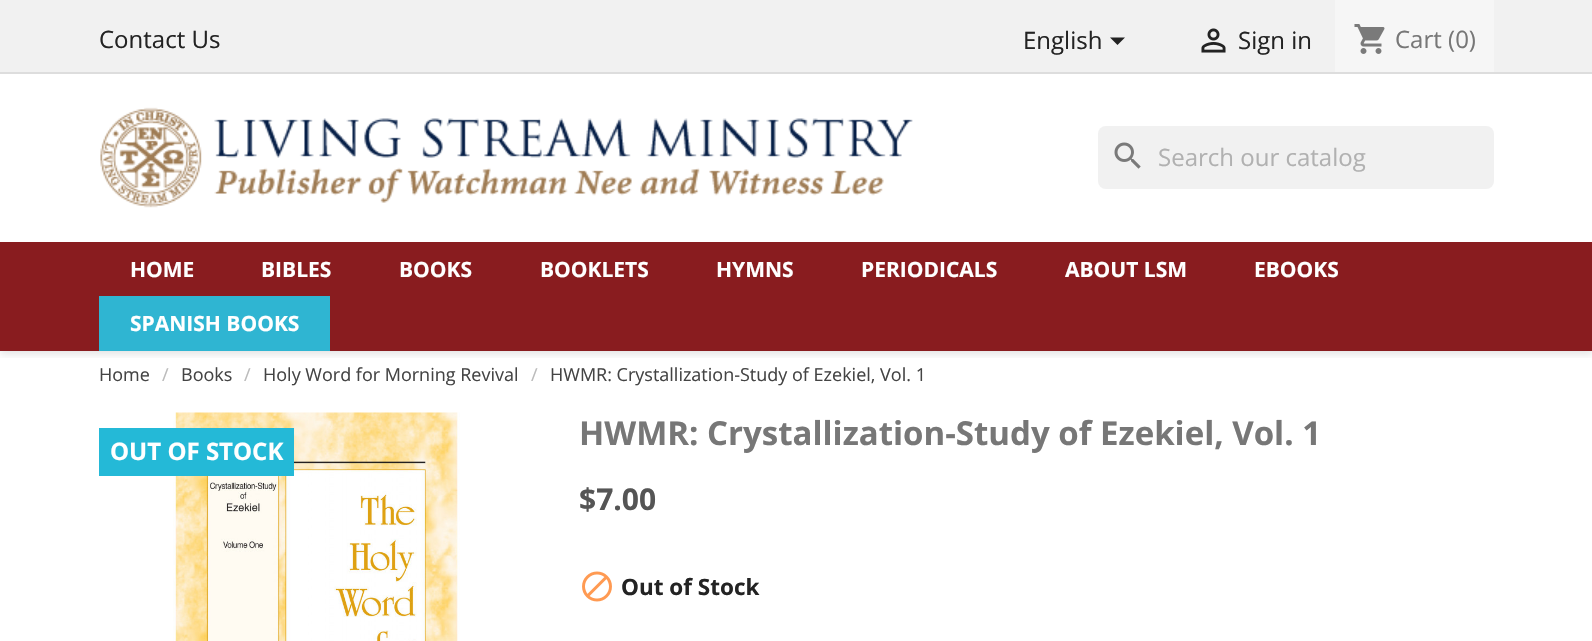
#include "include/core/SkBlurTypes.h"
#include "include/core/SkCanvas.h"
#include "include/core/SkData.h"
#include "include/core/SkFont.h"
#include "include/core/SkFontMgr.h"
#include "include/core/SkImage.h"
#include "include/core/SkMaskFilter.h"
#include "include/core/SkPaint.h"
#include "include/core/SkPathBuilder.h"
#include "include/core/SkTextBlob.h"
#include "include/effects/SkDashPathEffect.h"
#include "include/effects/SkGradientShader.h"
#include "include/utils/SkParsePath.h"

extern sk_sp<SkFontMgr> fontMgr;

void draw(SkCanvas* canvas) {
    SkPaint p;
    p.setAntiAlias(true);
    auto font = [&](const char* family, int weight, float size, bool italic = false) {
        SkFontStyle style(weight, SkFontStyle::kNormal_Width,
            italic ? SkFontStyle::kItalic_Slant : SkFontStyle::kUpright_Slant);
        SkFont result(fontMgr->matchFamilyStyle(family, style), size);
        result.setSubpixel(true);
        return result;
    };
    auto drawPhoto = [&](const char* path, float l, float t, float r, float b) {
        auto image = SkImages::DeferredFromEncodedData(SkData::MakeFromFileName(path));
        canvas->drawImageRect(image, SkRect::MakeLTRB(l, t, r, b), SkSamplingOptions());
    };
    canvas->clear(0xFFFFFFFF);
    canvas->save();
    canvas->clipRect(SkRect::MakeLTRB(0, 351, 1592, 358));
    p.setColor(0x1C000000);
    p.setMaskFilter(SkMaskFilter::MakeBlur(kNormal_SkBlurStyle, 4));
    canvas->drawRect(SkRect::MakeLTRB(0, 3, 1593, 354), p);
    p.setMaskFilter(nullptr);
    canvas->restore();
    p.setColor(0xFFF1F1F1);
    canvas->drawRect(SkRect::MakeLTRB(0, 0, 1592, 72), p);
    p.setColor(0xFFDDDDDD);
    canvas->drawRect(SkRect::MakeLTRB(0, 72, 1592, 74), p);
    auto font1 = font("Open Sans", 400, 24);
    p.setColor(0xFF232323);
    canvas->drawString("Contact Us", 99, 48, font1, p);
    canvas->drawString("English", 1023, 49, font1, p);
    canvas->drawPath(SkPathBuilder().moveTo(1110, 37.5f).lineTo(1125, 37.5f).lineTo(1117.5f, 45).close().detach(), p);
    drawPhoto("media/1.png", 1201, 28, 1226, 53);
    canvas->drawString("Sign in", 1238, 49, font1, p);
    p.setColor(0xFFF6F6F6);
    canvas->drawRect(SkRect::MakeLTRB(1335, 0, 1494, 72), p);
    drawPhoto("media/2.png", 1354, 24, 1385, 54);
    p.setColor(0xFF777777);
    canvas->drawString("Cart (0)", 1395, 48, font1, p);
    drawPhoto("media/3.png", 100, 107, 913, 208);
    p.setColor(0xFFF1F1F1);
    canvas->drawRoundRect(SkRect::MakeLTRB(1098, 126, 1494, 189), 8, 8, p);
    drawPhoto("media/4.png", 1114, 142, 1141, 169);
    p.setColor(0xFFB1B1B1);
    canvas->drawString("Search our catalog", 1158, 166, font1, p);
    p.setColor(0xFF891C1F);
    canvas->drawRect(SkRect::MakeLTRB(0, 242, 1592, 351), p);
    auto font2 = font("Open Sans", 700, 21);
    p.setColor(0xFFFFFFFF);
    {
        const struct { const char* s; float x, y; } items[] = {
            {"HOME", 130, 277},
            {"BIBLES", 261, 277},
            {"BOOKS", 399, 277},
            {"BOOKLETS", 540, 277},
            {"HYMNS", 716, 277},
            {"PERIODICALS", 861, 277},
            {"ABOUT LSM", 1065, 277},
            {"EBOOKS", 1254, 277},
        };
        for (auto [s, x, y] : items) {
            canvas->drawString(s, x, y, font2, p);
        }
    }
    p.setColor(0xFF2FB5D2);
    canvas->drawRect(SkRect::MakeLTRB(99, 296, 330, 351), p);
    p.setColor(0xFFFFFFFF);
    canvas->drawString("SPANISH BOOKS", 130, 331, font2, p);
    auto font3 = font("Open Sans", 400, 18);
    p.setColor(0xFF444444);
    canvas->drawString("Home", 99, 381, font3, p);
    p.setColor(0xFFBBBBBB);
    canvas->drawString("/", 162, 381, font3, p);
    p.setColor(0xFF444444);
    canvas->drawString("Books", 181, 381, font3, p);
    p.setColor(0xFFBBBBBB);
    canvas->drawString("/", 244, 381, font3, p);
    p.setColor(0xFF444444);
    canvas->drawString("Holy Word for Morning Revival", 263, 381, font3, p);
    p.setColor(0xFFBBBBBB);
    canvas->drawString("/", 531, 381, font3, p);
    p.setColor(0xFF444444);
    canvas->drawString("HWMR: Crystallization-Study of Ezekiel, Vol. 1", 550, 381, font3, p);
    drawPhoto("media/5.png", 173, 412, 460, 641);
    p.setColor(0xFF24B9D7);
    canvas->drawRect(SkRect::MakeLTRB(99, 428, 294, 476), p);
    auto font4 = font("Open Sans", 700, 24);
    p.setColor(0xFFFFFFFF);
    canvas->drawString("OUT OF STOCK", 110, 460, font4, p);
    auto font5 = font("Open Sans", 700, 33);
    p.setColor(0xFF777777);
    canvas->drawString("HWMR: Crystallization-Study of Ezekiel, Vol. 1", 579, 445, font5, p);
    auto font6 = font("Open Sans", 700, 30);
    p.setColor(0xFF555555);
    canvas->drawString("$7.00", 579, 510, font6, p);
    drawPhoto("media/6.png", 582, 571, 612, 602);
    auto font7 = font("Open Sans", 700, 22.5f);
    p.setColor(0xFF232323);
    canvas->drawString("Out of Stock", 621, 595, font7, p);
}
